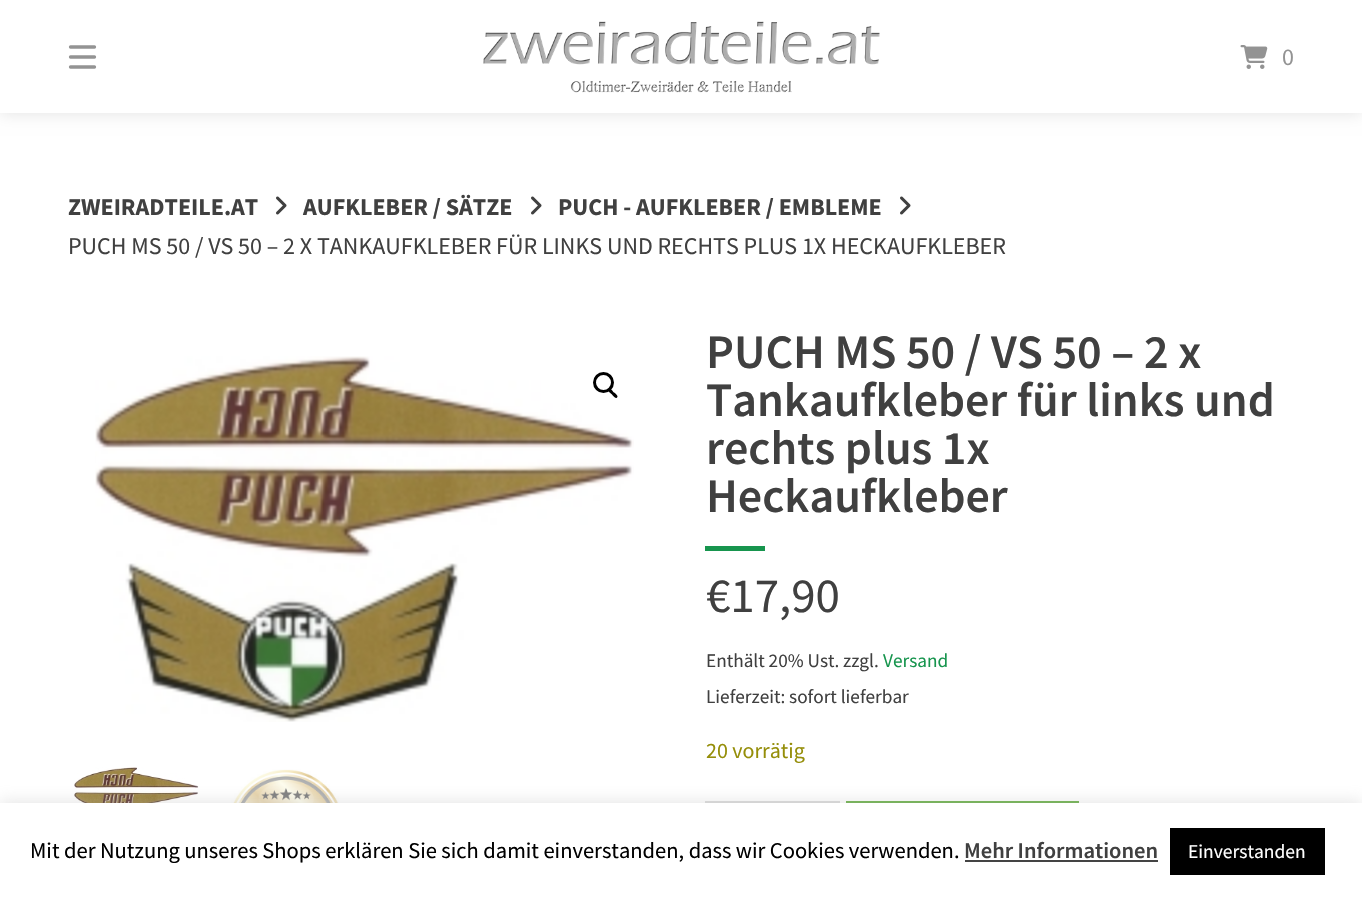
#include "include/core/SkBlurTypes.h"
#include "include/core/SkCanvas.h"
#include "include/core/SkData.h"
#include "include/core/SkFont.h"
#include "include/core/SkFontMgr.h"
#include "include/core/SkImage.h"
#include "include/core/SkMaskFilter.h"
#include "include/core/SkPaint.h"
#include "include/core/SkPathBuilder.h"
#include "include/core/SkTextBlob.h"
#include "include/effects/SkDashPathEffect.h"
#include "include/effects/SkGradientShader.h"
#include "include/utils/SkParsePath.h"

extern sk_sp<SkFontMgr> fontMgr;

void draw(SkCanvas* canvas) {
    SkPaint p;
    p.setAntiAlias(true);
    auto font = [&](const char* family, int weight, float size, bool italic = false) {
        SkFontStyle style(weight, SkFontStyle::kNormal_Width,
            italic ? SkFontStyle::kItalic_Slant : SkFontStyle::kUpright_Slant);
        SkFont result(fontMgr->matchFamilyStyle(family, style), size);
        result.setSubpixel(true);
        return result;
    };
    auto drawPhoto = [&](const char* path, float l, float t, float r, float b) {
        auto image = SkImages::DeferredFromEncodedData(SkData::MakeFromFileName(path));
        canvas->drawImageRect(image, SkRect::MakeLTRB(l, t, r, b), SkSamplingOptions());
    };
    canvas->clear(0xFFFFFFFF);
    p.setColor(0x1A000000);
    p.setMaskFilter(SkMaskFilter::MakeBlur(kNormal_SkBlurStyle, 7.5f));
    canvas->drawRect(SkRect::MakeLTRB(0, 2, 1362, 114), p);
    p.setMaskFilter(nullptr);
    p.setColor(0xFFFFFFFF);
    canvas->drawRect(SkRect::MakeLTRB(0, 0, 1362, 113), p);
    p.setStyle(SkPaint::kStroke_Style);
    p.setStrokeWidth(3.3f);
    p.setStrokeCap(SkPaint::kRound_Cap);
    p.setColor(0xFF939393);
    canvas->drawPath(SkPathBuilder().moveTo(70.5f, 47).lineTo(94.5f, 47).moveTo(70.5f, 57).lineTo(94.5f, 57).moveTo(70.5f, 67).lineTo(94.5f, 67).detach(), p);
    drawPhoto("media/1.png", 483, 21, 880, 93);
    drawPhoto("media/2.png", 1240, 45, 1268, 69);
    auto font1 = font("Source Sans Pro", 400, 24);
    p.setStyle(SkPaint::kFill_Style);
    canvas->drawString("0", 1282, 65, font1, p);
    auto font2 = font("Source Sans Pro", 700, 24);
    p.setColor(0xFF404040);
    canvas->drawString("ZWEIRADTEILE.AT", 68, 215, font2, p);
    drawPhoto("media/3.png", 276, 196, 287, 215);
    canvas->drawString("AUFKLEBER / SÄTZE", 303, 215, font2, p);
    drawPhoto("media/3.png", 531, 196, 542, 215);
    canvas->drawString("PUCH - AUFKLEBER / EMBLEME", 558, 215, font2, p);
    drawPhoto("media/3.png", 900, 196, 911, 215);
    canvas->drawString("PUCH MS 50 / VS 50 – 2 X TANKAUFKLEBER FÜR LINKS UND RECHTS PLUS 1X HECKAUFKLEBER", 68, 254, font1, p);
    drawPhoto("media/4.png", 95, 356, 634, 722);
    p.setStyle(SkPaint::kStroke_Style);
    p.setStrokeWidth(3);
    p.setStrokeCap(SkPaint::kButt_Cap);
    p.setColor(0xFF000000);
    canvas->drawCircle(603.5f, 382.5f, 9, p);
    p.setStyle(SkPaint::kFill_Style);
    canvas->drawPath(SkPathBuilder().moveTo(608.5f, 389).cubicTo(610.5f, 387.5f, 613, 391.5f, 614, 392.5f).cubicTo(615, 393, 619, 396, 617, 397.5f).cubicTo(615.5f, 399.5f, 613, 395.5f, 612, 394.5f).cubicTo(611, 393.5f, 607, 391, 608.5f, 389).close().detach(), p);
    drawPhoto("media/5.png", 74, 767, 199, 803);
    drawPhoto("media/6.png", 228, 769, 344, 803);
    auto font3 = font("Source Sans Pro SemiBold", 600, 48);
    p.setColor(0xFF404040);
    {
        const struct { const char* s; float x, y; } items[] = {
            {"PUCH MS 50 / VS 50 – 2 x", 706, 368},
            {"Tankaufkleber für links und", 706, 416},
            {"rechts plus 1x", 706, 464},
            {"Heckaufkleber", 706, 512},
        };
        for (auto [s, x, y] : items) {
            canvas->drawString(s, x, y, font3, p);
        }
    }
    p.setColor(0xFF17954E);
    canvas->drawRect(SkRect::MakeLTRB(705, 546, 765, 551), p);
    auto font4 = font("Source Sans Pro", 400, 49);
    p.setColor(0xFF404040);
    canvas->drawString("€17,90", 706, 612, font4, p);
    auto font5 = font("Source Sans Pro", 400, 19.25f);
    canvas->drawString("Enthält 20% Ust.", 706, 667, font5, p);
    canvas->drawString("zzgl.", 843, 667, font5, p);
    p.setColor(0xFF17954E);
    canvas->drawString("Versand", 883, 667, font5, p);
    p.setColor(0xFF404040);
    canvas->drawString("Lieferzeit: sofort lieferbar", 706, 703, font5, p);
    auto font6 = font("Source Sans Pro", 400, 22);
    p.setColor(0xFF958E09);
    canvas->drawString("20 vorrätig", 706, 758, font6, p);
    p.setStyle(SkPaint::kStroke_Style);
    p.setStrokeWidth(5);
    p.setColor(0xFFDDDDDD);
    canvas->drawRect(SkRect::MakeLTRB(707.5f, 803.5f, 837.5f, 864.5f), p);
    p.setStyle(SkPaint::kFill_Style);
    p.setColor(0xFF6FB34E);
    canvas->drawRect(SkRect::MakeLTRB(846, 801, 1079, 803), p);
    p.setColor(0x4DACABAB);
    p.setMaskFilter(SkMaskFilter::MakeBlur(kNormal_SkBlurStyle, 7.5f));
    canvas->drawRect(SkRect::MakeLTRB(0, 801, 1362, 899), p);
    p.setMaskFilter(nullptr);
    p.setColor(0xFFFFFFFF);
    canvas->drawRect(SkRect::MakeLTRB(0, 803, 1362, 900), p);
    auto font7 = font("Source Sans Pro", 400, 22.5f);
    p.setColor(0xFF000000);
    canvas->drawString("Mit der Nutzung unseres Shops erklären Sie sich damit einverstanden, dass wir Cookies verwenden.", 30, 858, font7, p);
    auto font8 = font("Source Sans Pro SemiBold", 600, 22.5f);
    p.setColor(0xFF404040);
    canvas->drawString("Mehr Informationen", 964, 858, font8, p);
    p.setColor(0xFF444444);
    canvas->drawRect(SkRect::MakeLTRB(965, 860, 1158, 862), p);
    p.setColor(0xFF000000);
    canvas->drawRect(SkRect::MakeLTRB(1170, 828, 1325, 875), p);
    auto font9 = font("Source Sans Pro", 400, 19.5f);
    p.setColor(0xFFFFFFFF);
    canvas->drawString("Einverstanden", 1188, 858, font9, p);
}
